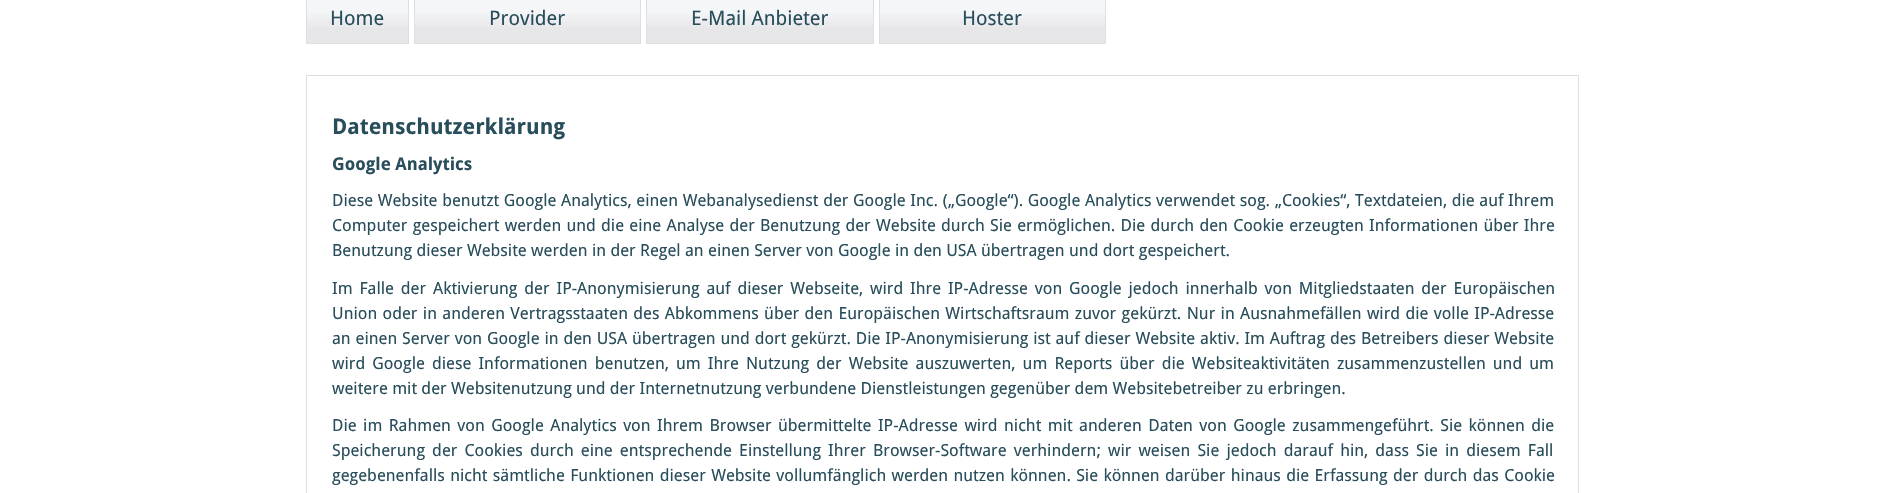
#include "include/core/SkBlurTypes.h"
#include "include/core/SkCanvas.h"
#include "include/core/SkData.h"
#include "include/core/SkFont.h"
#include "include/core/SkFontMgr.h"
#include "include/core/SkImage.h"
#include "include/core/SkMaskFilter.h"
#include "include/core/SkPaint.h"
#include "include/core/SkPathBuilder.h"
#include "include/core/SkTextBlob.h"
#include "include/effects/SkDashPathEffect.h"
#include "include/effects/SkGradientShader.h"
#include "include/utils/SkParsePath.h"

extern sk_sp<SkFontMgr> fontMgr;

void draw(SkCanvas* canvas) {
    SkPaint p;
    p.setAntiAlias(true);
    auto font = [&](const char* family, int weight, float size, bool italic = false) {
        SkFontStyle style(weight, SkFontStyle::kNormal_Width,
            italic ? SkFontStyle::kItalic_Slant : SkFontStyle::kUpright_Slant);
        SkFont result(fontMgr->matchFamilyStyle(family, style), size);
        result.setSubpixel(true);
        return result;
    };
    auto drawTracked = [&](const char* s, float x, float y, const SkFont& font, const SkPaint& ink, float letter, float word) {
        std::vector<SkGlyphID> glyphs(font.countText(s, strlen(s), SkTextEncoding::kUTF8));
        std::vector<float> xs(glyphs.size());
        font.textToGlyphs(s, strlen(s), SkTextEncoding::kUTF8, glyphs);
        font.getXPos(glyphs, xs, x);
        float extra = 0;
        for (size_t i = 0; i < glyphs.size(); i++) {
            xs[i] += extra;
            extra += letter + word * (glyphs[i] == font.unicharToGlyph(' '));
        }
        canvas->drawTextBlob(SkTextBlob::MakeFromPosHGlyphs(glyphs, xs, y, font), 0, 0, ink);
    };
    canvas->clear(0xFFFFFFFF);
    {
        const SkColor colors[] = {0xFFE7E7E9, 0xFFF5F6F8};
        const float stops[] = {0.29f, 0.65f};
        const SkPoint ends[] = {{308, 43}, {308, -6.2f}};
        p.setShader(SkGradientShader::MakeLinear(ends, colors, stops, 2, SkTileMode::kClamp));
        p.setAlpha(255);
    }
    canvas->drawRect(SkRect::MakeLTRB(307, 0, 408, 43), p);
    p.setStyle(SkPaint::kStroke_Style);
    p.setStrokeWidth(1);
    p.setShader(nullptr);
    p.setColor(0xFFDBE1E3);
    canvas->drawRect(SkRect::MakeLTRB(306.5f, -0.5f, 408.5f, 43.5f), p);
    auto font1 = font("Droid Sans", 400, 20);
    p.setStyle(SkPaint::kFill_Style);
    p.setColor(0xFF294E5B);
    canvas->drawString("Home", 330, 25, font1, p);
    {
        const SkColor colors[] = {0xFFE7E7E9, 0xFFF5F6F8};
        const float stops[] = {0.29f, 0.65f};
        const SkPoint ends[] = {{415, 43}, {415, -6.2f}};
        p.setShader(SkGradientShader::MakeLinear(ends, colors, stops, 2, SkTileMode::kClamp));
        p.setAlpha(255);
    }
    canvas->drawRect(SkRect::MakeLTRB(415, 0, 640, 43), p);
    p.setStyle(SkPaint::kStroke_Style);
    p.setShader(nullptr);
    p.setColor(0xFFDBE1E3);
    canvas->drawRect(SkRect::MakeLTRB(414.5f, -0.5f, 640.5f, 43.5f), p);
    p.setStyle(SkPaint::kFill_Style);
    p.setColor(0xFF294E5B);
    canvas->drawString("Provider", 489, 25, font1, p);
    {
        const SkColor colors[] = {0xFFE7E7E9, 0xFFF5F6F8};
        const float stops[] = {0.29f, 0.65f};
        const SkPoint ends[] = {{648, 43}, {648, -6.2f}};
        p.setShader(SkGradientShader::MakeLinear(ends, colors, stops, 2, SkTileMode::kClamp));
        p.setAlpha(255);
    }
    canvas->drawRect(SkRect::MakeLTRB(647, 0, 873, 43), p);
    p.setStyle(SkPaint::kStroke_Style);
    p.setShader(nullptr);
    p.setColor(0xFFDBE1E3);
    canvas->drawRect(SkRect::MakeLTRB(646.5f, -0.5f, 873.5f, 43.5f), p);
    p.setStyle(SkPaint::kFill_Style);
    p.setColor(0xFF294E5B);
    canvas->drawString("E-Mail Anbieter", 691, 25, font1, p);
    {
        const SkColor colors[] = {0xFFE7E7E9, 0xFFF5F6F8};
        const float stops[] = {0.29f, 0.65f};
        const SkPoint ends[] = {{880, 43}, {880, -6.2f}};
        p.setShader(SkGradientShader::MakeLinear(ends, colors, stops, 2, SkTileMode::kClamp));
        p.setAlpha(255);
    }
    canvas->drawRect(SkRect::MakeLTRB(880, 0, 1105, 43), p);
    p.setStyle(SkPaint::kStroke_Style);
    p.setShader(nullptr);
    p.setColor(0xFFDBE1E3);
    canvas->drawRect(SkRect::MakeLTRB(879.5f, -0.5f, 1105.5f, 43.5f), p);
    p.setStyle(SkPaint::kFill_Style);
    p.setColor(0xFF294E5B);
    canvas->drawString("Hoster", 962, 25, font1, p);
    p.setStyle(SkPaint::kStroke_Style);
    p.setColor(0xFFDBE1E3);
    canvas->drawRect(SkRect::MakeLTRB(306.5f, 75.5f, 1578.5f, 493.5f), p);
    auto font2 = font("Droid Sans", 700, 21.75f);
    p.setStyle(SkPaint::kFill_Style);
    p.setColor(0xFF294E5B);
    canvas->drawString("Datenschutzerklärung", 332, 134, font2, p);
    auto font3 = font("Droid Sans", 700, 17.5f);
    canvas->drawString("Google Analytics", 332, 170, font3, p);
    auto font4 = font("Droid Sans", 400, 16.67f);
    drawTracked("Diese Website benutzt Google Analytics, einen Webanalysedienst der Google Inc. („Google“). Google Analytics verwendet sog. „Cookies“, Textdateien, die auf Ihrem", 332, 206, font4, p, 0, 0.3f);
    drawTracked("Computer gespeichert werden und die eine Analyse der Benutzung der Website durch Sie ermöglichen. Die durch den Cookie erzeugten Informationen über Ihre", 332, 231, font4, p, 0, 0.9f);
    canvas->drawString("Benutzung dieser Website werden in der Regel an einen Server von Google in den USA übertragen und dort gespeichert.", 332, 256, font4, p);
    drawTracked("Im Falle der Aktivierung der IP-Anonymisierung auf dieser Webseite, wird Ihre IP-Adresse von Google jedoch innerhalb von Mitgliedstaaten der Europäischen", 332, 294, font4, p, 0, 2.5f);
    drawTracked("Union oder in anderen Vertragsstaaten des Abkommens über den Europäischen Wirtschaftsraum zuvor gekürzt. Nur in Ausnahmefällen wird die volle IP-Adresse", 332, 319, font4, p, 0, 1);
    drawTracked("an einen Server von Google in den USA übertragen und dort gekürzt. Die IP-Anonymisierung ist auf dieser Website aktiv. Im Auftrag des Betreibers dieser Website", 332, 344, font4, p, 0, 0.5f);
    drawTracked("wird Google diese Informationen benutzen, um Ihre Nutzung der Website auszuwerten, um Reports über die Websiteaktivitäten zusammenzustellen und um", 332, 369, font4, p, 0, 2.75f);
    canvas->drawString("weitere mit der Websitenutzung und der Internetnutzung verbundene Dienstleistungen gegenüber dem Websitebetreiber zu erbringen.", 332, 394, font4, p);
    drawTracked("Die im Rahmen von Google Analytics von Ihrem Browser übermittelte IP-Adresse wird nicht mit anderen Daten von Google zusammengeführt. Sie können die", 332, 431, font4, p, 0, 2.1f);
    drawTracked("Speicherung der Cookies durch eine entsprechende Einstellung Ihrer Browser-Software verhindern; wir weisen Sie jedoch darauf hin, dass Sie in diesem Fall", 332, 456, font4, p, 0, 2.75f);
    drawTracked("gegebenenfalls nicht sämtliche Funktionen dieser Website vollumfänglich werden nutzen können. Sie können darüber hinaus die Erfassung der durch das Cookie", 332, 481, font4, p, 0, 1);
}
